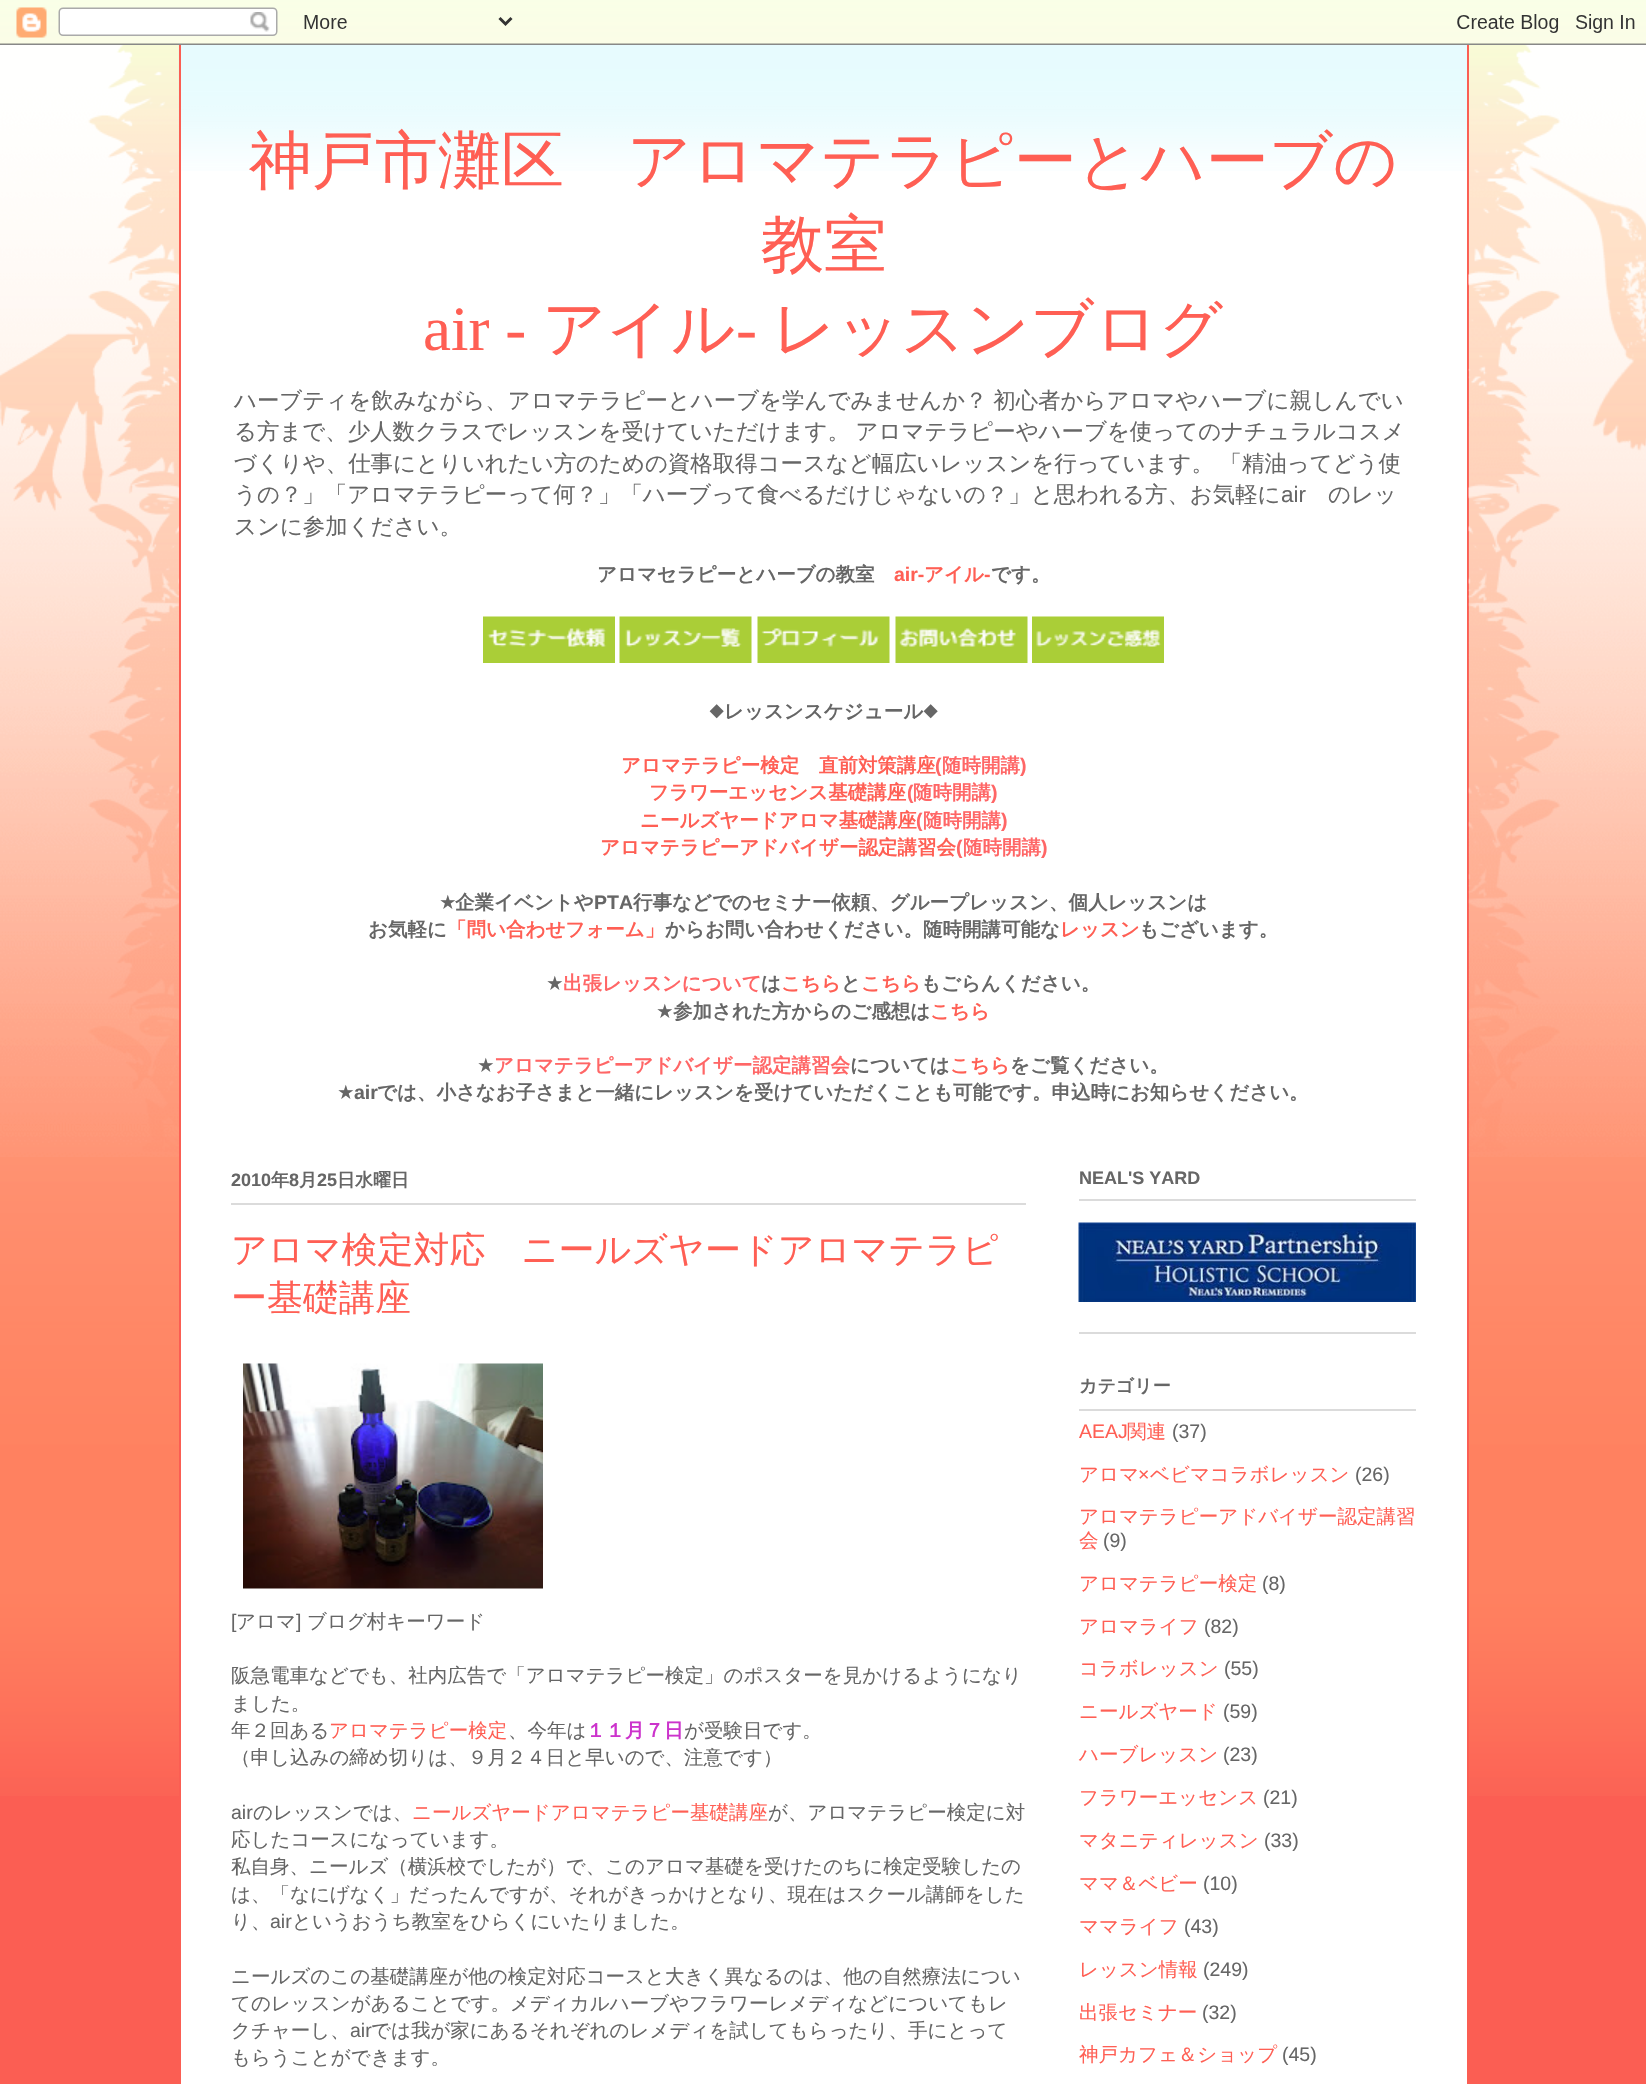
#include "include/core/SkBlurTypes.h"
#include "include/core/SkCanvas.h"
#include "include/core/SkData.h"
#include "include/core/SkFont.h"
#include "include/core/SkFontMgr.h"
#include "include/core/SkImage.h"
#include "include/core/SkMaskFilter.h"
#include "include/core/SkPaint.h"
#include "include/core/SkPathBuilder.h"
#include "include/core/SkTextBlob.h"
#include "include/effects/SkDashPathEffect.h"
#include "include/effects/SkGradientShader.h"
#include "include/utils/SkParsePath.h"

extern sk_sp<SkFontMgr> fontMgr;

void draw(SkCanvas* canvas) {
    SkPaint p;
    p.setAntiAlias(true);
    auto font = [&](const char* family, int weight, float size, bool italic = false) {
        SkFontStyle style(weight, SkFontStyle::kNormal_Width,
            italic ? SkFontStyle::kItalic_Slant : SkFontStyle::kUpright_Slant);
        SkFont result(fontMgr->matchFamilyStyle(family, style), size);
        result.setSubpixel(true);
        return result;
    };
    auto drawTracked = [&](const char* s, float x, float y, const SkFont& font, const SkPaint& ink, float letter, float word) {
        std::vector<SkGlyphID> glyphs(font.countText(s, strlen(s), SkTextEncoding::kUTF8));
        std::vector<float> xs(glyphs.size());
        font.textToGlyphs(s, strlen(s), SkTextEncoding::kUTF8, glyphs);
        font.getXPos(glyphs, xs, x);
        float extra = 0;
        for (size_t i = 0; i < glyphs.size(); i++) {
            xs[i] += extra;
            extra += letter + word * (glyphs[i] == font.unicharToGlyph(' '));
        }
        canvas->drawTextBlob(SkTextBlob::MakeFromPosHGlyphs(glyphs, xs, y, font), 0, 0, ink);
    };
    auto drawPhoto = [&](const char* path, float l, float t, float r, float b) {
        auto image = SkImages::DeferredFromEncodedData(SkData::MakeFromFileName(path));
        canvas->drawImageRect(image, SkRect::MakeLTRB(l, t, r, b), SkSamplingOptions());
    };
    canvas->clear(0xFFFB5E53);
    drawPhoto("media/1.png", 0, 0, 1646, 1796);
    drawPhoto("media/2.png", 0, 0, 1646, 45);
    drawPhoto("media/3.png", 0, 45, 179, 1157);
    p.setColor(0xFFFFFFFF);
    canvas->drawRect(SkRect::MakeLTRB(181, 45, 1467, 2084), p);
    drawPhoto("media/4.png", 178, 45, 1467, 171);
    p.setColor(0xFFFB5E53);
    canvas->drawRect(SkRect::MakeLTRB(1467, 45, 1469, 1796), p);
    canvas->drawRect(SkRect::MakeLTRB(179, 45, 181, 1796), p);
    drawPhoto("media/5.png", 1468, 45, 1646, 1157);
    auto font1 = font("WenQuanYi Zen Hei", 500, 63);
    p.setColor(0xFFFF5F54);
    canvas->drawString("神戸市灘区　アロマテラピーとハーブの", 249, 182, font1, p);
    canvas->drawString("教室", 761, 266, font1, p);
    auto font2 = font("Liberation Serif", 400, 63);
    canvas->drawString("air -", 423, 350, font2, p);
    canvas->drawString("アイル", 542, 350, font1, p);
    canvas->drawString("-", 736, 350, font2, p);
    canvas->drawString("レッスンブログ", 772, 350, font1, p);
    auto font3 = font("WenQuanYi Zen Hei", 500, 22.42f);
    p.setColor(0xFF666666);
    {
        const struct { const char* s; float x, y; } items[] = {
            {"ハーブティを飲みながら、アロマテラピーとハーブを学んでみませんか？ 初心者からアロマやハーブに親しんでい", 234, 408},
            {"る方まで、少人数クラスでレッスンを受けていただけます。 アロマテラピーやハーブを使ってのナチュラルコスメ", 234, 439},
            {"づくりや、仕事にとりいれたい方のための資格取得コースなど幅広いレッスンを行っています。 「精油ってどう使", 234, 471},
        };
        for (auto [s, x, y] : items) {
            drawTracked(s, x, y, font3, p, 0, -1);
        }
    }
    canvas->drawString("うの？」「アロマテラピーって何？」「ハーブって食べるだけじゃないの？」と思われる方、お気軽に", 234, 502, font3, p);
    auto font4 = font("Liberation Sans", 400, 22.42f);
    canvas->drawString("air", 1281, 502, font4, p);
    canvas->drawString("のレッ", 1328, 502, font3, p);
    canvas->drawString("スンに参加ください。", 234, 534, font3, p);
    auto font5 = font("WenQuanYi Zen Hei", 700, 19.5f);
    canvas->drawString("アロマセラピーとハーブの教室", 597, 581, font5, p);
    auto font6 = font("Liberation Sans", 700, 19.5f);
    p.setColor(0xFFFF5F54);
    canvas->drawString("air-", 894, 581, font6, p);
    canvas->drawString("アイル", 924, 581, font5, p);
    canvas->drawString("-", 984, 581, font6, p);
    p.setColor(0xFF666666);
    canvas->drawString("です。", 991, 581, font5, p);
    drawPhoto("media/6.png", 483, 616, 615, 663);
    drawPhoto("media/7.png", 619, 616, 752, 663);
    drawPhoto("media/8.png", 757, 616, 890, 663);
    drawPhoto("media/9.png", 895, 616, 1028, 663);
    drawPhoto("media/10.png", 1032, 616, 1164, 663);
    auto font7 = font("FreeSans", 600, 19.5f);
    canvas->drawString("◆", 709, 718, font7, p);
    canvas->drawString("レッスンスケジュール", 724, 718, font5, p);
    canvas->drawString("◆", 923, 718, font7, p);
    p.setColor(0xFFFF5F54);
    canvas->drawString("アロマテラピー検定　直前対策講座", 621, 772, font5, p);
    p.setColor(0xFFFF6666);
    canvas->drawString("(", 935, 772, font6, p);
    canvas->drawString("随時開講", 942, 772, font5, p);
    canvas->drawString(")", 1020, 772, font6, p);
    p.setColor(0xFFFF5F54);
    canvas->drawString("フラワーエッセンス基礎講座", 649, 799, font5, p);
    p.setColor(0xFFFF6666);
    canvas->drawString("(", 907, 799, font6, p);
    canvas->drawString("随時開講", 913, 799, font5, p);
    canvas->drawString(")", 991, 799, font6, p);
    p.setColor(0xFFFF5F54);
    canvas->drawString("ニールズヤードアロマ基礎講座", 640, 827, font5, p);
    p.setColor(0xFFFF6666);
    canvas->drawString("(", 916, 827, font6, p);
    canvas->drawString("随時開講", 923, 827, font5, p);
    canvas->drawString(")", 1001, 827, font6, p);
    p.setColor(0xFFFF5F54);
    canvas->drawString("アロマテラピーアドバイザー認定講習会", 600, 854, font5, p);
    p.setColor(0xFFFF6666);
    canvas->drawString("(", 956, 854, font6, p);
    canvas->drawString("随時開講", 963, 854, font5, p);
    canvas->drawString(")", 1041, 854, font6, p);
    p.setColor(0xFF666666);
    canvas->drawString("★", 440, 909, font7, p);
    canvas->drawString("企業イベントや", 455, 909, font5, p);
    canvas->drawString("PTA", 594, 909, font6, p);
    canvas->drawString("行事などでのセミナー依頼、グループレッスン、個人レッスンは", 633, 909, font5, p);
    canvas->drawString("お気軽に", 368, 936, font5, p);
    p.setColor(0xFFFF5F54);
    canvas->drawString("「問い合わせフォーム」", 447, 936, font5, p);
    p.setColor(0xFF666666);
    canvas->drawString("からお問い合わせください。随時開講可能な", 665, 936, font5, p);
    p.setColor(0xFFFF5F54);
    canvas->drawString("レッスン", 1060, 936, font5, p);
    p.setColor(0xFF666666);
    canvas->drawString("もございます。", 1139, 936, font5, p);
    canvas->drawString("★", 547, 990, font7, p);
    p.setColor(0xFFFF6666);
    canvas->drawString("出張レッスンについて", 563, 990, font5, p);
    p.setColor(0xFF666666);
    canvas->drawString("は", 761, 990, font5, p);
    p.setColor(0xFFFF5F54);
    canvas->drawString("こちら", 781, 990, font5, p);
    p.setColor(0xFF666666);
    canvas->drawString("と", 841, 990, font5, p);
    p.setColor(0xFFFF5F54);
    canvas->drawString("こちら", 861, 990, font5, p);
    p.setColor(0xFF666666);
    canvas->drawString("もごらんください。", 921, 990, font5, p);
    canvas->drawString("★", 657, 1018, font7, p);
    canvas->drawString("参加された方からのご感想は", 673, 1018, font5, p);
    p.setColor(0xFFFF5F54);
    canvas->drawString("こちら", 930, 1018, font5, p);
    p.setColor(0xFF666666);
    canvas->drawString("★", 478, 1072, font7, p);
    p.setColor(0xFFFF6666);
    canvas->drawString("アロマテラピーアドバイザー認定講習会", 494, 1072, font5, p);
    p.setColor(0xFF666666);
    canvas->drawString("については", 850, 1072, font5, p);
    p.setColor(0xFFFF5F54);
    canvas->drawString("こちら", 950, 1072, font5, p);
    p.setColor(0xFF666666);
    canvas->drawString("をご覧ください。", 1010, 1072, font5, p);
    canvas->drawString("★", 338, 1099, font7, p);
    canvas->drawString("air", 354, 1099, font6, p);
    canvas->drawString("では、小さなお子さまと一緒にレッスンを受けていただくことも可能です。申込時にお知らせください。", 377, 1099, font5, p);
    p.setColor(0xFFDBDBDB);
    canvas->drawRect(SkRect::MakeLTRB(231, 1203, 1026, 1205), p);
    auto font8 = font("Liberation Sans", 700, 18);
    p.setColor(0xFF666666);
    canvas->drawString("2010", 231, 1186, font8, p);
    auto font9 = font("WenQuanYi Zen Hei", 700, 18);
    canvas->drawString("年", 271, 1186, font9, p);
    canvas->drawString("8", 289, 1186, font8, p);
    canvas->drawString("月", 299, 1186, font9, p);
    canvas->drawString("25", 317, 1186, font8, p);
    canvas->drawString("日水曜日", 337, 1186, font9, p);
    auto font10 = font("WenQuanYi Zen Hei", 500, 36);
    p.setColor(0xFFFF5F54);
    canvas->drawString("アロマ検定対応　ニールズヤードアロマテラピ", 231, 1262, font10, p);
    canvas->drawString("ー基礎講座", 231, 1310, font10, p);
    drawPhoto("media/11.png", 243, 1363, 543, 1589);
    auto font11 = font("Liberation Sans", 400, 19.5f);
    p.setColor(0xFF666666);
    canvas->drawString("[", 231, 1628, font11, p);
    auto font12 = font("WenQuanYi Zen Hei", 500, 19.5f);
    canvas->drawString("アロマ", 236, 1628, font12, p);
    canvas->drawString("]", 296, 1628, font11, p);
    {
        const struct { const char* s; float x, y; } items[] = {
            {"ブログ村キーワード", 307, 1628},
            {"阪急電車などでも、社内広告で「アロマテラピー検定」のポスターを見かけるようになり", 231, 1682},
            {"ました。", 231, 1710},
            {"年２回ある", 231, 1737},
        };
        for (auto [s, x, y] : items) {
            canvas->drawString(s, x, y, font12, p);
        }
    }
    p.setColor(0xFFFF5F54);
    canvas->drawString("アロマテラピー検定", 329, 1737, font12, p);
    p.setColor(0xFF666666);
    canvas->drawString("、今年は", 508, 1737, font12, p);
    p.setColor(0xFFCC33CC);
    canvas->drawString("１１月７日", 586, 1737, font5, p);
    p.setColor(0xFF666666);
    canvas->drawString("が受験日です。", 684, 1737, font12, p);
    canvas->drawString("（申し込みの締め切りは、９月２４日と早いので、注意です）", 231, 1764, font12, p);
    canvas->drawString("air", 231, 1819, font11, p);
    canvas->drawString("のレッスンでは、", 253, 1819, font12, p);
    p.setColor(0xFFFF5F54);
    canvas->drawString("ニールズヤードアロマテラピー基礎講座", 412, 1819, font12, p);
    p.setColor(0xFF666666);
    {
        const struct { const char* s; float x, y; } items[] = {
            {"が、アロマテラピー検定に対", 768, 1819},
            {"応したコースになっています。", 231, 1846},
            {"私自身、ニールズ（横浜校でしたが）で、このアロマ基礎を受けたのちに検定受験したの", 231, 1873},
            {"は、「なにげなく」だったんですが、それがきっかけとなり、現在はスクール講師をした", 231, 1901},
            {"り、", 231, 1928},
        };
        for (auto [s, x, y] : items) {
            canvas->drawString(s, x, y, font12, p);
        }
    }
    canvas->drawString("air", 270, 1928, font11, p);
    {
        const struct { const char* s; float x, y; } items[] = {
            {"というおうち教室をひらくにいたりました。", 292, 1928},
            {"ニールズのこの基礎講座が他の検定対応コースと大きく異なるのは、他の自然療法につい", 231, 1983},
            {"てのレッスンがあることです。メディカルハーブやフラワーレメディなどについてもレ", 231, 2010},
            {"クチャーし、", 231, 2037},
        };
        for (auto [s, x, y] : items) {
            canvas->drawString(s, x, y, font12, p);
        }
    }
    canvas->drawString("air", 350, 2037, font11, p);
    canvas->drawString("では我が家にあるそれぞれのレメディを試してもらったり、手にとって", 371, 2037, font12, p);
    canvas->drawString("もらうことができます。", 231, 2064, font12, p);
    p.setColor(0xFFDBDBDB);
    canvas->drawRect(SkRect::MakeLTRB(1079, 1332, 1416, 1334), p);
    canvas->drawRect(SkRect::MakeLTRB(1079, 1199, 1416, 1201), p);
    p.setColor(0xFF666666);
    canvas->drawString("NEAL'S YARD", 1079, 1184, font8, p);
    drawPhoto("media/12.png", 1078, 1222, 1416, 1302);
    p.setColor(0xFFDBDBDB);
    canvas->drawRect(SkRect::MakeLTRB(1079, 1409, 1416, 1411), p);
    p.setColor(0xFF666666);
    canvas->drawString("カテゴリー", 1079, 1392, font9, p);
    p.setColor(0xFFFF5F54);
    canvas->drawString("AEAJ", 1079, 1438, font11, p);
    canvas->drawString("関連", 1127, 1438, font12, p);
    p.setColor(0xFF666666);
    canvas->drawString("(37)", 1172, 1438, font11, p);
    p.setColor(0xFFFF5F54);
    canvas->drawString("アロマ", 1079, 1481, font12, p);
    canvas->drawString("×", 1138, 1481, font11, p);
    canvas->drawString("ベビマコラボレッスン", 1150, 1481, font12, p);
    p.setColor(0xFF666666);
    canvas->drawString("(26)", 1355, 1481, font11, p);
    p.setColor(0xFFFF5F54);
    canvas->drawString("アロマテラピーアドバイザー認定講習", 1079, 1523, font12, p);
    canvas->drawString("会", 1079, 1547, font12, p);
    p.setColor(0xFF666666);
    canvas->drawString("(9)", 1103, 1547, font11, p);
    p.setColor(0xFFFF5F54);
    canvas->drawString("アロマテラピー検定", 1079, 1590, font12, p);
    p.setColor(0xFF666666);
    canvas->drawString("(8)", 1262, 1590, font11, p);
    p.setColor(0xFFFF5F54);
    canvas->drawString("アロマライフ", 1079, 1633, font12, p);
    p.setColor(0xFF666666);
    canvas->drawString("(82)", 1204, 1633, font11, p);
    p.setColor(0xFFFF5F54);
    canvas->drawString("コラボレッスン", 1079, 1675, font12, p);
    p.setColor(0xFF666666);
    canvas->drawString("(55)", 1224, 1675, font11, p);
    p.setColor(0xFFFF5F54);
    canvas->drawString("ニールズヤード", 1079, 1718, font12, p);
    p.setColor(0xFF666666);
    canvas->drawString("(59)", 1223, 1718, font11, p);
    p.setColor(0xFFFF5F54);
    canvas->drawString("ハーブレッスン", 1079, 1761, font12, p);
    p.setColor(0xFF666666);
    canvas->drawString("(23)", 1223, 1761, font11, p);
    p.setColor(0xFFFF5F54);
    canvas->drawString("フラワーエッセンス", 1079, 1804, font12, p);
    p.setColor(0xFF666666);
    canvas->drawString("(21)", 1263, 1804, font11, p);
    p.setColor(0xFFFF5F54);
    canvas->drawString("マタニティレッスン", 1079, 1847, font12, p);
    p.setColor(0xFF666666);
    canvas->drawString("(33)", 1264, 1847, font11, p);
    p.setColor(0xFFFF5F54);
    canvas->drawString("ママ＆ベビー", 1079, 1890, font12, p);
    p.setColor(0xFF666666);
    canvas->drawString("(10)", 1203, 1890, font11, p);
    p.setColor(0xFFFF5F54);
    canvas->drawString("ママライフ", 1079, 1933, font12, p);
    p.setColor(0xFF666666);
    canvas->drawString("(43)", 1184, 1933, font11, p);
    p.setColor(0xFFFF5F54);
    canvas->drawString("レッスン情報", 1079, 1976, font12, p);
    p.setColor(0xFF666666);
    canvas->drawString("(249)", 1203, 1976, font11, p);
    p.setColor(0xFFFF5F54);
    canvas->drawString("出張セミナー", 1079, 2019, font12, p);
    p.setColor(0xFF666666);
    canvas->drawString("(32)", 1202, 2019, font11, p);
    p.setColor(0xFFFF5F54);
    canvas->drawString("神戸カフェ＆ショップ", 1079, 2061, font12, p);
    p.setColor(0xFF666666);
    canvas->drawString("(45)", 1282, 2061, font11, p);
}
